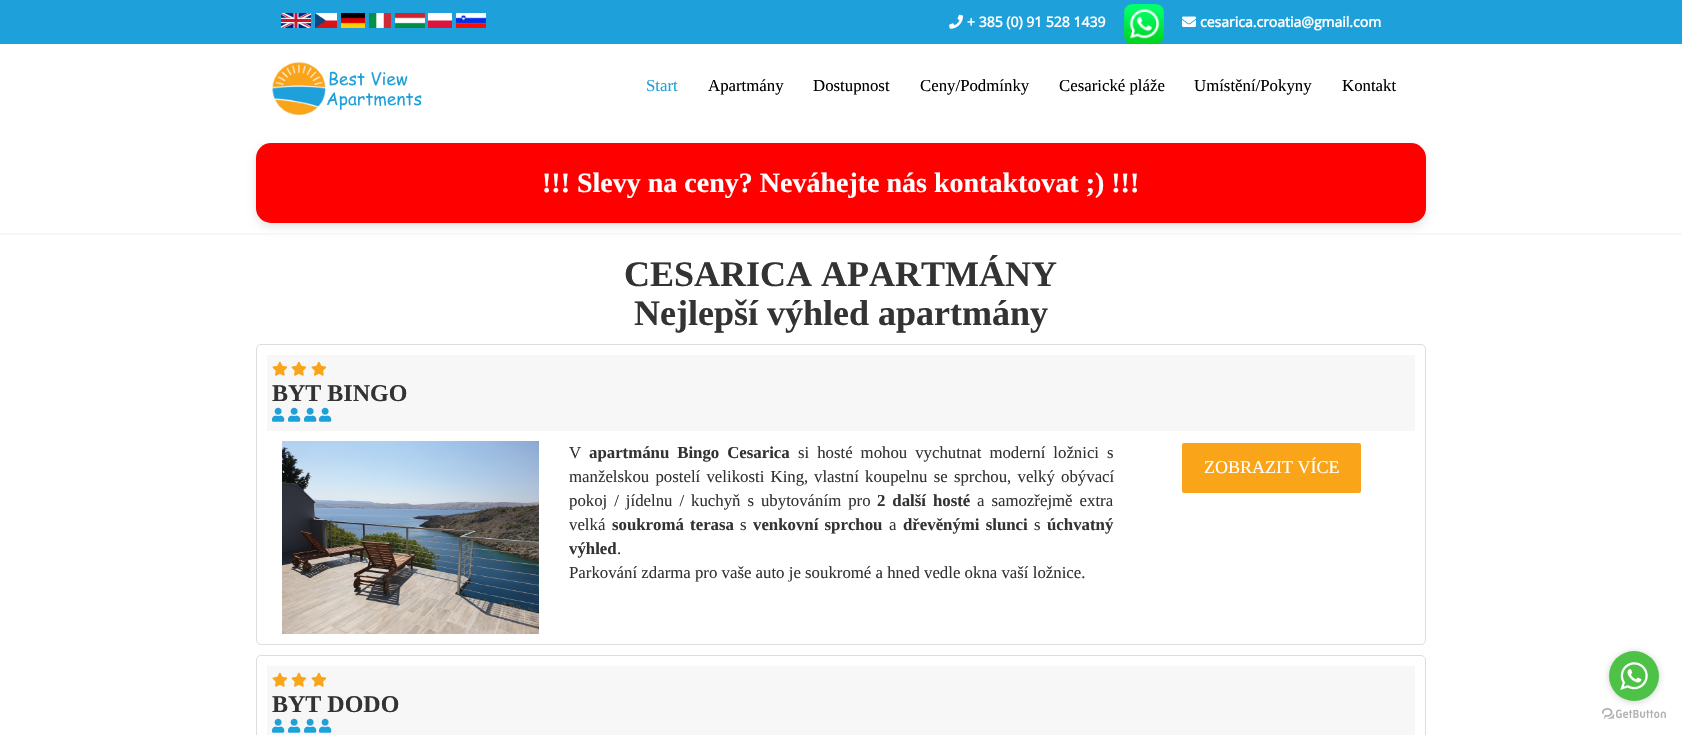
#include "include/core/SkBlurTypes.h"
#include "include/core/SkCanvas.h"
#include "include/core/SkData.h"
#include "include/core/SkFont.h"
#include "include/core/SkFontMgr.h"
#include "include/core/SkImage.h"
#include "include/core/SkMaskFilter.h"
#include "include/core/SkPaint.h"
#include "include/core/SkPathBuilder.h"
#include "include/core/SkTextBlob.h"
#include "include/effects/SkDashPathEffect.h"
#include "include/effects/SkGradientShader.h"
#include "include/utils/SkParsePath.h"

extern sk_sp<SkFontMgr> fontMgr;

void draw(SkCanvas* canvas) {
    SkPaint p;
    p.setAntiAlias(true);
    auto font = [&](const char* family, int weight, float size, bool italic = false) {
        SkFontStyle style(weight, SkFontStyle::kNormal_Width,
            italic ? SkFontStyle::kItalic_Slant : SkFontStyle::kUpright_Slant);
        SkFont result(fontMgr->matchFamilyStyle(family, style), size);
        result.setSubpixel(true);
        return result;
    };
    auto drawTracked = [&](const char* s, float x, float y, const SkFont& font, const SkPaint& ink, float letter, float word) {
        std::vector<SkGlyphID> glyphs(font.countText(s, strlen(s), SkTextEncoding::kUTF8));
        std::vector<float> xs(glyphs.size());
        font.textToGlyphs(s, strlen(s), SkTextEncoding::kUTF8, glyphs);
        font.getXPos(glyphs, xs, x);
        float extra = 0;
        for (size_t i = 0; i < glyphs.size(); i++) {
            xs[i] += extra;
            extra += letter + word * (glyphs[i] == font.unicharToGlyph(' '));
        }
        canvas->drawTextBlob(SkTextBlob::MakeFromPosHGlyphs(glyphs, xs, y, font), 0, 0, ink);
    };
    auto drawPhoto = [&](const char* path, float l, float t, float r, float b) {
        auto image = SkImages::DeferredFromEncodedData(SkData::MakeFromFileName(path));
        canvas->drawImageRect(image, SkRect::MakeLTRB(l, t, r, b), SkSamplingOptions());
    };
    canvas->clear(0xFFFFFFFF);
    p.setColor(0xFF1EA0DA);
    canvas->drawRect(SkRect::MakeLTRB(0, 0, 1682, 44), p);
    drawPhoto("media/1.png", 281, 13, 311, 28);
    drawPhoto("media/2.png", 315, 13, 337, 28);
    drawPhoto("media/3.png", 341, 13, 365, 28);
    drawPhoto("media/4.png", 369, 13, 391, 28);
    drawPhoto("media/5.png", 395, 13, 425, 28);
    drawPhoto("media/6.png", 428, 13, 452, 28);
    drawPhoto("media/7.png", 456, 13, 486, 28);
    drawPhoto("media/8.png", 949, 14, 963, 29);
    auto font1 = font("Open Sans", 700, 14);
    p.setColor(0xFFFFFFFF);
    canvas->drawString("+ 385 (0) 91 528 1439", 967, 27, font1, p);
    drawPhoto("media/9.png", 1124, 4, 1164, 44);
    drawPhoto("media/10.png", 1182, 16, 1196, 27);
    canvas->drawString("cesarica.croatia@gmail.com", 1200, 27, font1, p);
    drawPhoto("media/11.png", 272, 62, 422, 116);
    auto font2 = font("Liberation Serif", 400, 16.8f);
    p.setColor(0xFF1EA0DA);
    canvas->drawString("Start", 646, 91, font2, p);
    p.setColor(0xFF000000);
    {
        const struct { const char* s; float x, y; } items[] = {
            {"Apartmány", 708, 91},
            {"Dostupnost", 813, 91},
            {"Ceny/Podmínky", 920, 91},
            {"Cesarické pláže", 1059, 91},
            {"Umístění/Pokyny", 1194, 91},
            {"Kontakt", 1342, 91},
        };
        for (auto [s, x, y] : items) {
            canvas->drawString(s, x, y, font2, p);
        }
    }
    p.setColor(0x1A000000);
    p.setMaskFilter(SkMaskFilter::MakeBlur(kNormal_SkBlurStyle, 4));
    canvas->drawRoundRect(SkRect::MakeLTRB(256, 147, 1426, 227), 15, 15, p);
    p.setMaskFilter(nullptr);
    p.setColor(0xFFFF0000);
    canvas->drawRoundRect(SkRect::MakeLTRB(256, 143, 1426, 223), 15, 15, p);
    auto font3 = font("Liberation Serif", 700, 28);
    p.setColor(0xFFFFFFFF);
    canvas->drawString("!!! Slevy na ceny? Neváhejte nás kontaktovat ;) !!!", 542, 192, font3, p);
    p.setColor(0xFFF7F7F7);
    canvas->drawRect(SkRect::MakeLTRB(0, 233, 1682, 235), p);
    auto font4 = font("Liberation Serif", 700, 36);
    p.setColor(0xFF333333);
    canvas->drawString("CESARICA APARTMÁNY", 624, 286, font4, p);
    canvas->drawString("Nejlepší výhled apartmány", 634, 325, font4, p);
    p.setStyle(SkPaint::kStroke_Style);
    p.setStrokeWidth(1);
    p.setColor(0xFFDDDDDD);
    canvas->drawRoundRect(SkRect::MakeLTRB(256.5f, 344.5f, 1425.5f, 644.5f), 4.5f, 4.5f, p);
    p.setStyle(SkPaint::kFill_Style);
    p.setColor(0xFFF7F7F7);
    canvas->drawRect(SkRect::MakeLTRB(267, 355, 1415, 431), p);
    drawPhoto("media/12.png", 272, 361, 288, 376);
    drawPhoto("media/12.png", 291, 361, 307, 376);
    drawPhoto("media/12.png", 311, 361, 327, 376);
    auto font5 = font("Liberation Serif", 700, 24);
    p.setColor(0xFF333333);
    canvas->drawString("BYT BINGO", 272, 401, font5, p);
    drawPhoto("media/13.png", 272, 407, 285, 422);
    drawPhoto("media/13.png", 288, 407, 301, 422);
    drawPhoto("media/13.png", 304, 407, 317, 422);
    drawPhoto("media/13.png", 319, 407, 332, 422);
    drawPhoto("media/14.png", 282, 441, 539, 634);
    canvas->drawString("V", 569, 458, font2, p);
    auto font6 = font("Liberation Serif", 700, 16.8f);
    drawTracked("apartmánu Bingo Cesarica", 589, 458, font6, p, 0, 3.75f);
    drawTracked("si hosté mohou vychutnat moderní ložnici s", 798, 458, font2, p, 0, 3.75f);
    drawTracked("manželskou postelí velikosti King,", 569, 482, font2, p, 0, 2);
    drawTracked("vlastní koupelnu se sprchou, velký obývací", 814, 482, font2, p, 0, 2);
    drawTracked("pokoj / jídelnu / kuchyň s ubytováním pro", 569, 506, font2, p, 0, 2.75f);
    drawTracked("2 další hosté", 877, 506, font6, p, 0, 2.75f);
    drawTracked("a samozřejmě extra", 977, 506, font2, p, 0, 2.75f);
    canvas->drawString("velká", 569, 530, font2, p);
    drawTracked("soukromá terasa", 612, 530, font6, p, 0, 2);
    canvas->drawString("s", 740, 530, font2, p);
    drawTracked("venkovní sprchou", 753, 530, font6, p, 0, 2);
    canvas->drawString("a", 889, 530, font2, p);
    drawTracked("dřevěnými slunci", 903, 530, font6, p, 0, 2);
    canvas->drawString("s", 1034, 530, font2, p);
    canvas->drawString("úchvatný", 1047, 530, font6, p);
    canvas->drawString("výhled", 569, 554, font6, p);
    canvas->drawString(".", 617, 554, font2, p);
    canvas->drawString("Parkování zdarma pro vaše auto je soukromé a hned vedle okna vaší ložnice.", 569, 578, font2, p);
    p.setColor(0xFFFAA41A);
    canvas->drawRoundRect(SkRect::MakeLTRB(1181, 442, 1362, 494), 3, 3, p);
    p.setStyle(SkPaint::kStroke_Style);
    p.setStrokeWidth(2);
    p.setColor(0xFFFFFFFF);
    canvas->drawRoundRect(SkRect::MakeLTRB(1181, 442, 1362, 494), 3, 3, p);
    auto font7 = font("Liberation Serif", 400, 18);
    p.setStyle(SkPaint::kFill_Style);
    canvas->drawString("ZOBRAZIT VÍCE", 1204, 473, font7, p);
    p.setStyle(SkPaint::kStroke_Style);
    p.setStrokeWidth(1);
    p.setColor(0xFFDDDDDD);
    canvas->drawRoundRect(SkRect::MakeLTRB(256.5f, 655.5f, 1425.5f, 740.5f), 4.5f, 4.5f, p);
    p.setStyle(SkPaint::kFill_Style);
    p.setColor(0xFFF7F7F7);
    canvas->drawRect(SkRect::MakeLTRB(267, 666, 1415, 735), p);
    drawPhoto("media/12.png", 272, 672, 288, 687);
    drawPhoto("media/12.png", 291, 672, 307, 687);
    drawPhoto("media/12.png", 311, 672, 327, 687);
    p.setColor(0xFF333333);
    canvas->drawString("BYT DODO", 272, 712, font5, p);
    drawPhoto("media/13.png", 272, 718, 285, 733);
    drawPhoto("media/13.png", 288, 718, 301, 733);
    drawPhoto("media/13.png", 304, 718, 317, 733);
    drawPhoto("media/13.png", 319, 718, 332, 733);
    drawPhoto("media/16.png", 1602, 708, 1666, 719);
    p.setColor(0x66888888);
    p.setMaskFilter(SkMaskFilter::MakeBlur(kNormal_SkBlurStyle, 3.5f));
    canvas->drawRoundRect(SkRect::MakeLTRB(1609, 652, 1659, 702), 25, 25, p);
    p.setMaskFilter(nullptr);
    p.setColor(0xFF4DC247);
    canvas->drawCircle(1634, 676, 25, p);
    drawPhoto("media/15.png", 1620, 662, 1648, 690);
}
